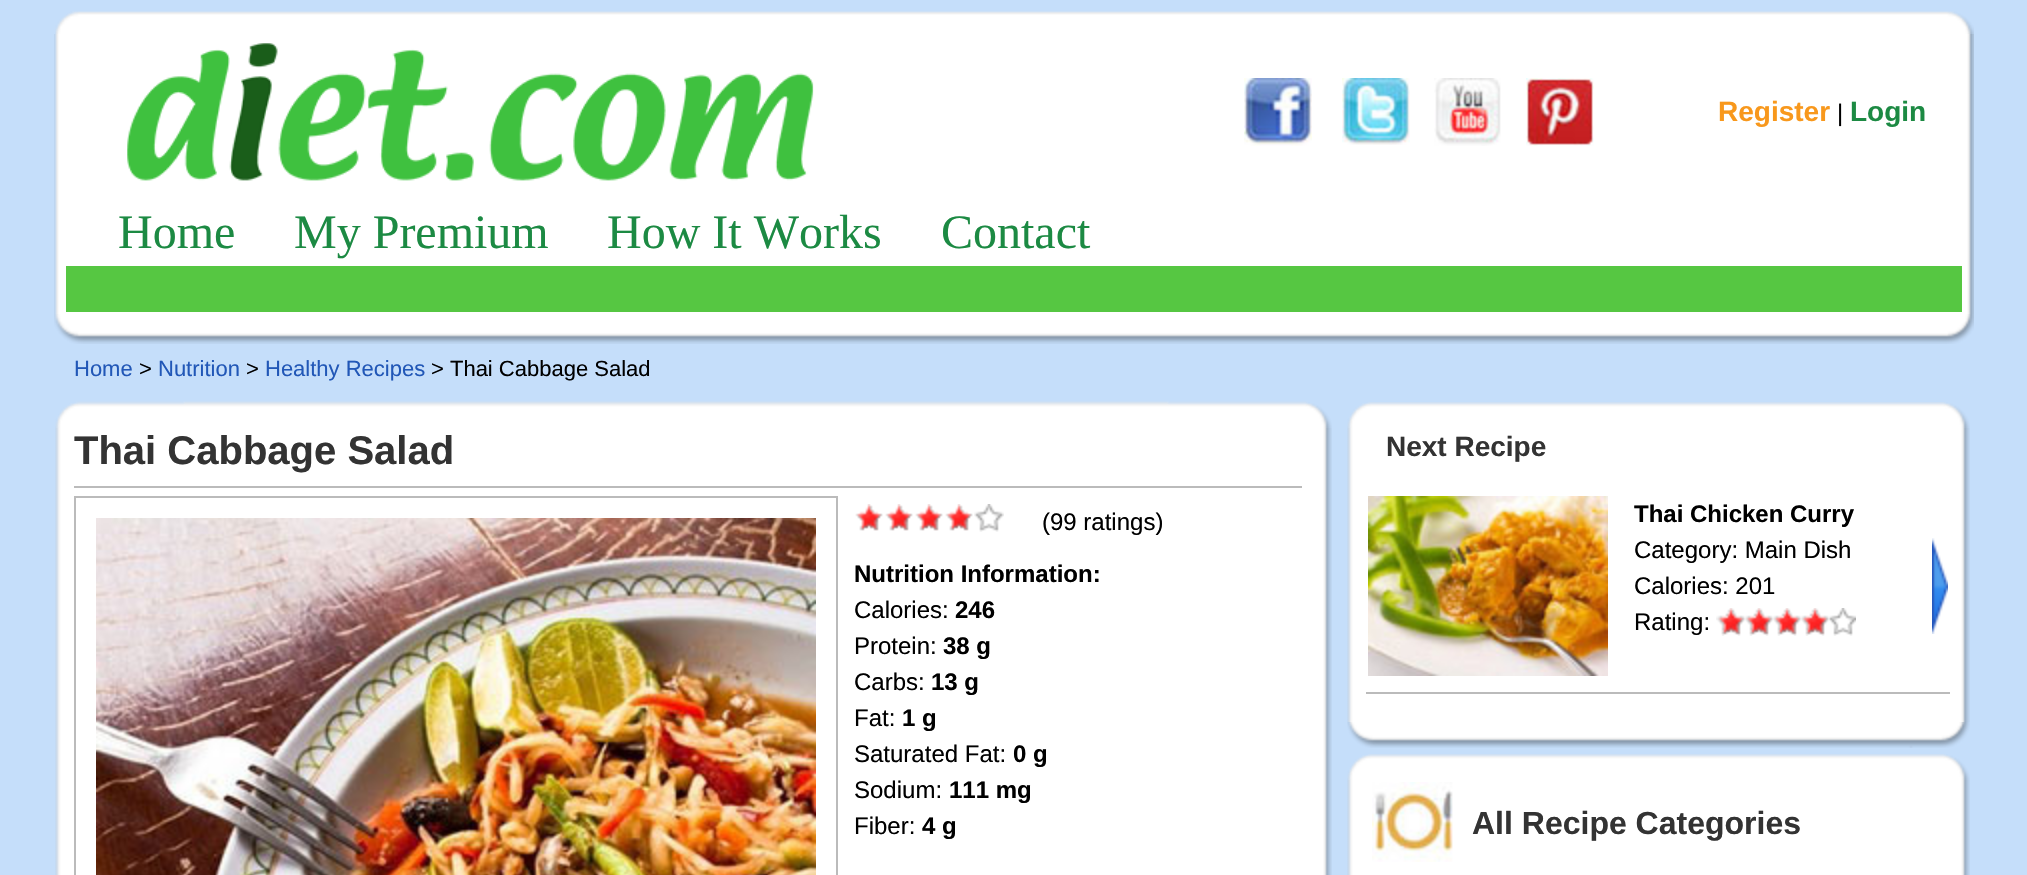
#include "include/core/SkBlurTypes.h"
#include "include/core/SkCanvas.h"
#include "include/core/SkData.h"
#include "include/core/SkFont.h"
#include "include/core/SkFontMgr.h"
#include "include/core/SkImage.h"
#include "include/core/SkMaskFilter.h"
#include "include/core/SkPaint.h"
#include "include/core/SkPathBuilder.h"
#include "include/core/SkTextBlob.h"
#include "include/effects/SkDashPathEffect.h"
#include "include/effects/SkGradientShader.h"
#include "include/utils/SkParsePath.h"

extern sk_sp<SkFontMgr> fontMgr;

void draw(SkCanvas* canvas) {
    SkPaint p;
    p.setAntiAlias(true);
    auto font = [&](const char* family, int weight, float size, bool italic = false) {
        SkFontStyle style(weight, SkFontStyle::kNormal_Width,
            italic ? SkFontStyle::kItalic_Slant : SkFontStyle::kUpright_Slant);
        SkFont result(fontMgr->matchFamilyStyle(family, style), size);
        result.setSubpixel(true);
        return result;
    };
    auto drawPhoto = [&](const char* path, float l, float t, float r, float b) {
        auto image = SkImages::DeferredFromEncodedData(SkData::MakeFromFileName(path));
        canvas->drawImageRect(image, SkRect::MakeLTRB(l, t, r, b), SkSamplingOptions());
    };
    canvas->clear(0xFFC5DEFA);
    drawPhoto("media/1.png", 55, 11, 1974, 34);
    drawPhoto("media/2.png", 54, 34, 1974, 188);
    drawPhoto("media/3.png", 127, 43, 814, 181);
    drawPhoto("media/4.png", 1244, 78, 1312, 146);
    drawPhoto("media/5.png", 1342, 78, 1410, 145);
    drawPhoto("media/6.png", 1434, 78, 1501, 146);
    drawPhoto("media/7.png", 1526, 78, 1594, 146);
    auto font1 = font("Liberation Sans", 700, 28);
    p.setColor(0xFFF8981C);
    canvas->drawString("Register", 1718, 121, font1, p);
    auto font2 = font("Liberation Sans", 400, 24);
    p.setColor(0xFF000000);
    canvas->drawString("|", 1837, 121, font2, p);
    p.setColor(0xFF1C8A43);
    canvas->drawString("Login", 1850, 121, font1, p);
    drawPhoto("media/8.png", 54, 188, 1974, 314);
    auto font3 = font("Liberation Serif", 400, 48);
    {
        const struct { const char* s; float x, y; } items[] = {
            {"Home", 118, 248},
            {"My Premium", 294, 248},
            {"How It Works", 607, 248},
            {"Contact", 941, 248},
        };
        for (auto [s, x, y] : items) {
            canvas->drawString(s, x, y, font3, p);
        }
    }
    p.setColor(0xFF56C742);
    canvas->drawRect(SkRect::MakeLTRB(66, 266, 1962, 312), p);
    drawPhoto("media/9.png", 54, 314, 1974, 344);
    auto font4 = font("Liberation Sans", 400, 22);
    p.setColor(0xFF2157B7);
    canvas->drawString("Home", 74, 376, font4, p);
    p.setColor(0xFF000000);
    canvas->drawString(">", 139, 376, font4, p);
    p.setColor(0xFF2157B7);
    canvas->drawString("Nutrition", 158, 376, font4, p);
    p.setColor(0xFF000000);
    canvas->drawString(">", 246, 376, font4, p);
    p.setColor(0xFF2157B7);
    canvas->drawString("Healthy Recipes", 265, 376, font4, p);
    p.setColor(0xFF000000);
    canvas->drawString("> Thai Cabbage Salad", 431, 376, font4, p);
    drawPhoto("media/10.png", 55, 401, 1332, 428);
    drawPhoto("media/11.png", 55, 428, 1332, 875);
    p.setColor(0xFFBBBBBB);
    canvas->drawRect(SkRect::MakeLTRB(74, 486, 1302, 488), p);
    auto font5 = font("Liberation Sans", 700, 40);
    p.setColor(0xFF333333);
    canvas->drawString("Thai Cabbage Salad", 74, 464, font5, p);
    p.setStyle(SkPaint::kStroke_Style);
    p.setStrokeWidth(2);
    p.setColor(0xFFBBBBBB);
    canvas->drawRect(SkRect::MakeLTRB(75, 497, 837, 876), p);
    drawPhoto("media/12.png", 96, 518, 816, 875);
    drawPhoto("media/13.png", 855, 504, 883, 531);
    drawPhoto("media/13.png", 885, 504, 913, 531);
    drawPhoto("media/13.png", 915, 504, 943, 531);
    drawPhoto("media/13.png", 945, 504, 973, 531);
    drawPhoto("media/14.png", 974, 504, 1004, 532);
    p.setStyle(SkPaint::kFill_Style);
    p.setColor(0xFF000000);
    canvas->drawString("(99 ratings)", 1042, 530, font2, p);
    auto font6 = font("Liberation Sans", 700, 24);
    canvas->drawString("Nutrition Information:", 854, 582, font6, p);
    canvas->drawString("Calories:", 854, 618, font2, p);
    canvas->drawString("246", 955, 618, font6, p);
    canvas->drawString("Protein:", 854, 654, font2, p);
    canvas->drawString("38 g", 943, 654, font6, p);
    canvas->drawString("Carbs:", 854, 690, font2, p);
    canvas->drawString("13 g", 931, 690, font6, p);
    canvas->drawString("Fat:", 854, 726, font2, p);
    canvas->drawString("1 g", 902, 726, font6, p);
    canvas->drawString("Saturated Fat:", 854, 762, font2, p);
    canvas->drawString("0 g", 1013, 762, font6, p);
    canvas->drawString("Sodium:", 854, 798, font2, p);
    canvas->drawString("111 mg", 949, 798, font6, p);
    canvas->drawString("Fiber:", 854, 834, font2, p);
    canvas->drawString("4 g", 922, 834, font6, p);
    drawPhoto("media/15.png", 1347, 402, 1970, 428);
    drawPhoto("media/16.png", 1347, 428, 1970, 722);
    p.setColor(0xFF333333);
    canvas->drawString("Next Recipe", 1386, 456, font1, p);
    drawPhoto("media/17.png", 1368, 496, 1608, 676);
    p.setColor(0xFF000000);
    canvas->drawString("Thai Chicken Curry", 1634, 522, font6, p);
    {
        const struct { const char* s; float x, y; } items[] = {
            {"Category: Main Dish", 1634, 558},
            {"Calories: 201", 1634, 594},
            {"Rating:", 1634, 630},
        };
        for (auto [s, x, y] : items) {
            canvas->drawString(s, x, y, font2, p);
        }
    }
    drawPhoto("media/18.png", 1716, 608, 1856, 636);
    drawPhoto("media/19.png", 1932, 538, 1948, 634);
    p.setColor(0xFFBBBBBB);
    canvas->drawRect(SkRect::MakeLTRB(1366, 692, 1950, 694), p);
    drawPhoto("media/20.png", 1347, 722, 1970, 748);
    drawPhoto("media/15.png", 1347, 754, 1970, 780);
    drawPhoto("media/21.png", 1347, 780, 1970, 875);
    drawPhoto("media/22.png", 1372, 782, 1453, 862);
    auto font7 = font("Liberation Sans", 700, 32);
    p.setColor(0xFF333333);
    canvas->drawString("All Recipe Categories", 1472, 834, font7, p);
}
